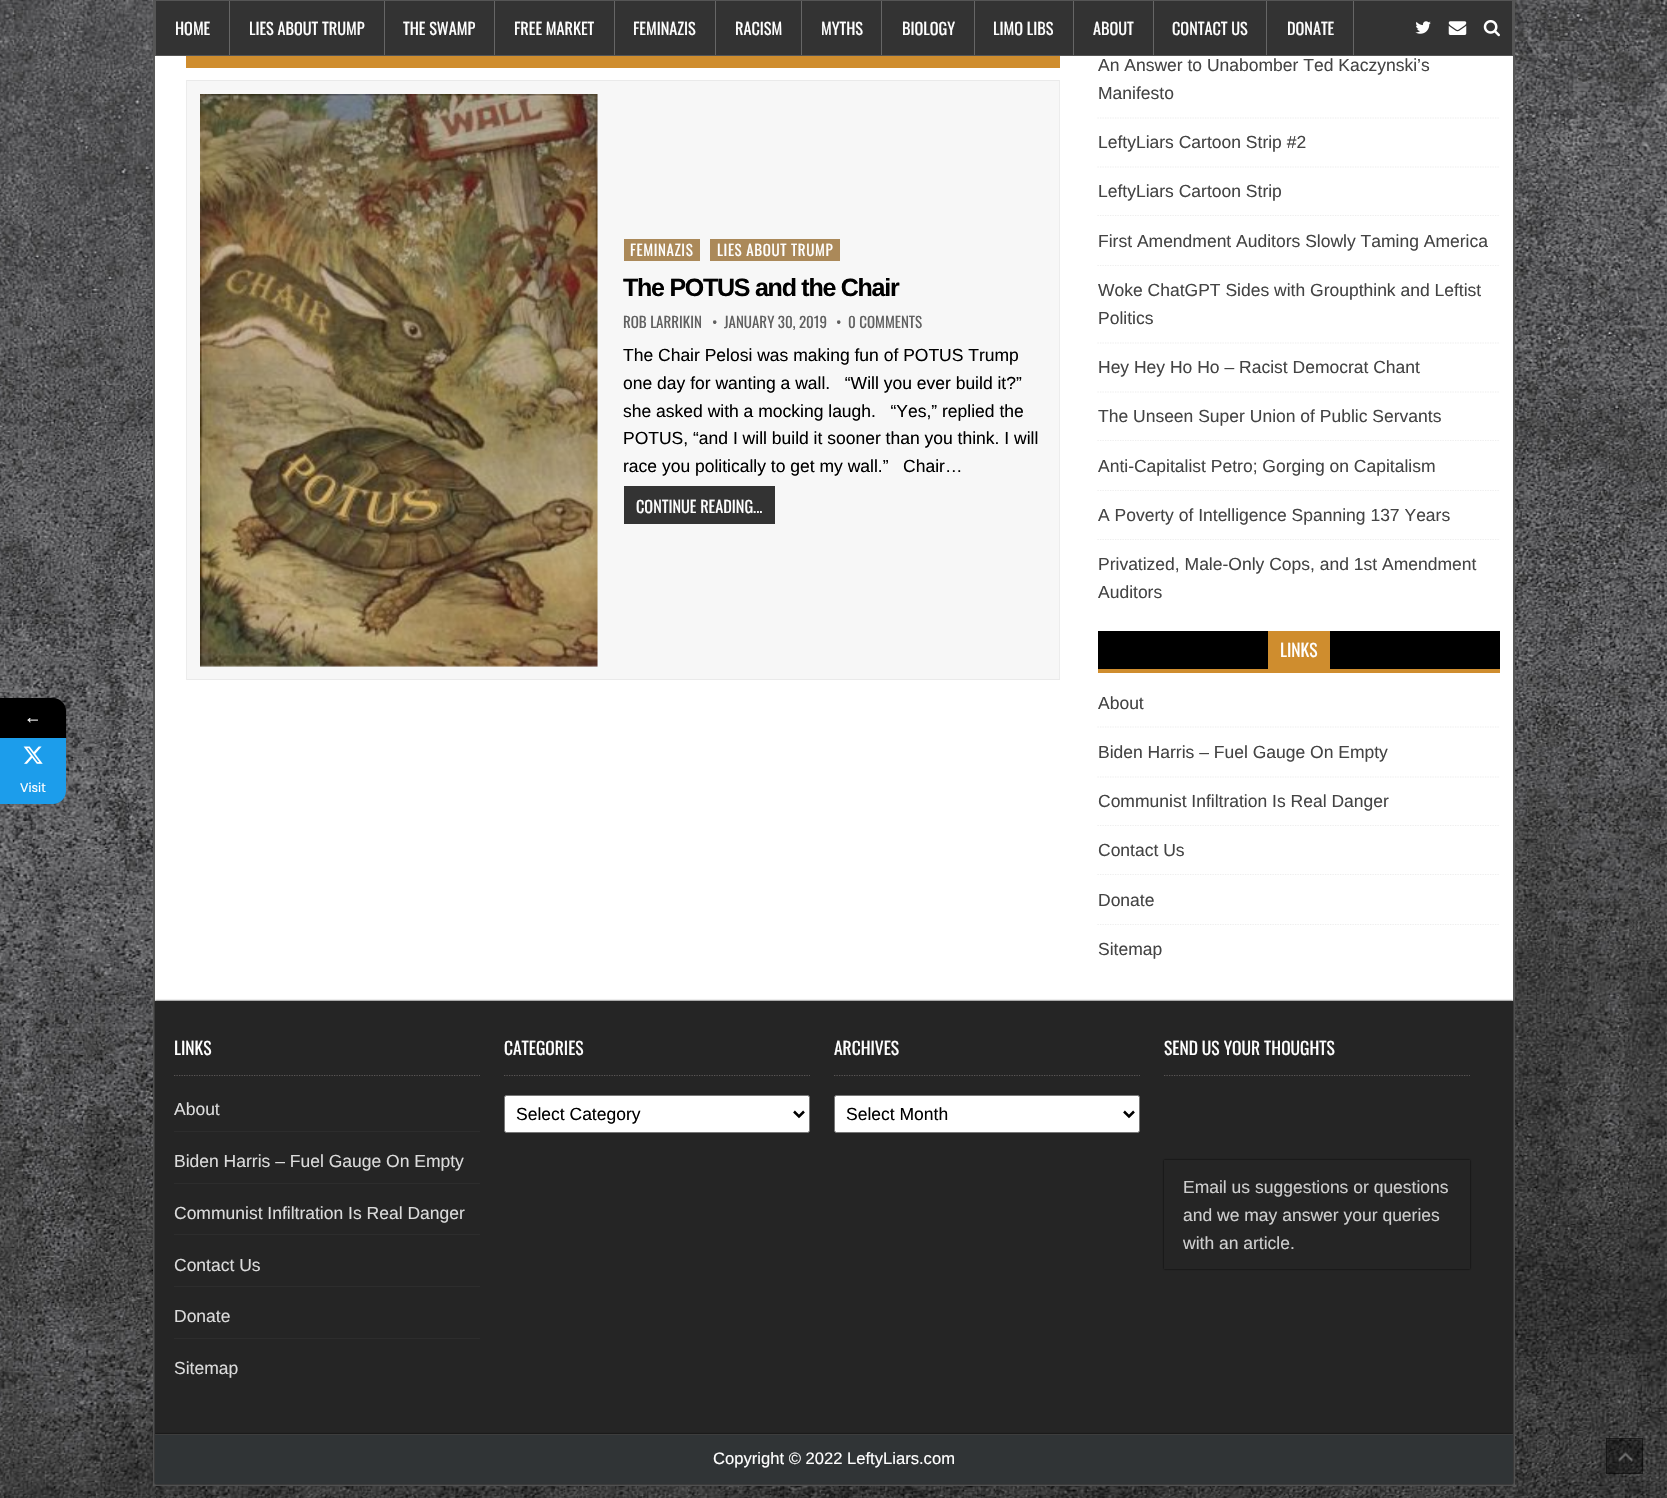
#include "include/core/SkBlurTypes.h"
#include "include/core/SkCanvas.h"
#include "include/core/SkData.h"
#include "include/core/SkFont.h"
#include "include/core/SkFontMgr.h"
#include "include/core/SkImage.h"
#include "include/core/SkMaskFilter.h"
#include "include/core/SkPaint.h"
#include "include/core/SkPathBuilder.h"
#include "include/core/SkTextBlob.h"
#include "include/effects/SkDashPathEffect.h"
#include "include/effects/SkGradientShader.h"
#include "include/utils/SkParsePath.h"

extern sk_sp<SkFontMgr> fontMgr;

void draw(SkCanvas* canvas) {
    SkPaint p;
    p.setAntiAlias(true);
    auto font = [&](const char* family, int weight, float size, bool italic = false) {
        SkFontStyle style(weight, SkFontStyle::kNormal_Width,
            italic ? SkFontStyle::kItalic_Slant : SkFontStyle::kUpright_Slant);
        SkFont result(fontMgr->matchFamilyStyle(family, style), size);
        result.setSubpixel(true);
        return result;
    };
    auto drawTracked = [&](const char* s, float x, float y, const SkFont& font, const SkPaint& ink, float letter, float word) {
        std::vector<SkGlyphID> glyphs(font.countText(s, strlen(s), SkTextEncoding::kUTF8));
        std::vector<float> xs(glyphs.size());
        font.textToGlyphs(s, strlen(s), SkTextEncoding::kUTF8, glyphs);
        font.getXPos(glyphs, xs, x);
        float extra = 0;
        for (size_t i = 0; i < glyphs.size(); i++) {
            xs[i] += extra;
            extra += letter + word * (glyphs[i] == font.unicharToGlyph(' '));
        }
        canvas->drawTextBlob(SkTextBlob::MakeFromPosHGlyphs(glyphs, xs, y, font), 0, 0, ink);
    };
    auto drawPhoto = [&](const char* path, float l, float t, float r, float b) {
        auto image = SkImages::DeferredFromEncodedData(SkData::MakeFromFileName(path));
        canvas->drawImageRect(image, SkRect::MakeLTRB(l, t, r, b), SkSamplingOptions());
    };
    canvas->clear(0xFFFFFFFF);
    drawPhoto("media/1.png", 0, 0, 1667, 1498);
    p.setColor(0x29000000);
    p.setMaskFilter(SkMaskFilter::MakeBlur(kNormal_SkBlurStyle, 4));
    canvas->drawRoundRect(SkRect::MakeLTRB(0, 701, 66, 741), 13, 13, p);
    p.setMaskFilter(nullptr);
    p.setColor(0xFF000000);
    canvas->drawPath(SkPathBuilder().moveTo(0, 698).lineTo(53, 698).cubicTo(60, 698, 66, 704, 66, 711).lineTo(66, 738).lineTo(0, 738).close().detach(), p);
    auto font1 = font("Liberation Serif", 400, 17.5f);
    p.setColor(0xFFFFFFFF);
    canvas->drawString("←", 24, 723, font1, p);
    p.setColor(0xFF1C9DEB);
    canvas->drawPath(SkPathBuilder().moveTo(0, 738).lineTo(66, 738).lineTo(66, 791).cubicTo(66, 798, 60, 804, 53, 804).lineTo(0, 804).close().detach(), p);
    drawPhoto("media/2.png", 23, 746, 43, 764);
    auto font2 = font("Poppins", 400, 12.5f);
    p.setColor(0xFFFFFFFF);
    canvas->drawString("Visit", 20, 792, font2, p);
    p.setStyle(SkPaint::kStroke_Style);
    p.setStrokeWidth(1);
    p.setColor(0xFF565656);
    canvas->drawRect(SkRect::MakeLTRB(153.5f, -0.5f, 1514.5f, 1485.5f), p);
    canvas->drawRect(SkRect::MakeLTRB(154.5f, -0.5f, 1513.5f, 1484.5f), p);
    p.setStyle(SkPaint::kFill_Style);
    p.setColor(0xFF333333);
    canvas->drawRect(SkRect::MakeLTRB(155.5f, 0.5f, 1512.5f, 55.5f), p);
    p.setStyle(SkPaint::kStroke_Style);
    p.setColor(0xFF555555);
    canvas->drawRect(SkRect::MakeLTRB(155.5f, 0.5f, 1512.5f, 55.5f), p);
    p.setStyle(SkPaint::kFill_Style);
    p.setColor(0xFF666666);
    canvas->drawRect(SkRect::MakeLTRB(229, 1, 230, 55), p);
    auto font3 = font("Oswald", 400, 16.25f);
    p.setColor(0xFFFFFFFF);
    canvas->drawString("HOME", 175, 35, font3, p);
    p.setColor(0xFF666666);
    canvas->drawRect(SkRect::MakeLTRB(384, 1, 385, 55), p);
    p.setColor(0xFFFFFFFF);
    canvas->drawString("LIES ABOUT TRUMP", 249, 35, font3, p);
    p.setColor(0xFF666666);
    canvas->drawRect(SkRect::MakeLTRB(494, 1, 495, 55), p);
    p.setColor(0xFFFFFFFF);
    canvas->drawString("THE SWAMP", 403, 35, font3, p);
    p.setColor(0xFF666666);
    canvas->drawRect(SkRect::MakeLTRB(614, 1, 615, 55), p);
    p.setColor(0xFFFFFFFF);
    canvas->drawString("FREE MARKET", 514, 35, font3, p);
    p.setColor(0xFF666666);
    canvas->drawRect(SkRect::MakeLTRB(715, 1, 716, 55), p);
    p.setColor(0xFFFFFFFF);
    canvas->drawString("FEMINAZIS", 633, 35, font3, p);
    p.setColor(0xFF666666);
    canvas->drawRect(SkRect::MakeLTRB(801, 1, 802, 55), p);
    p.setColor(0xFFFFFFFF);
    canvas->drawString("RACISM", 735, 35, font3, p);
    p.setColor(0xFF666666);
    canvas->drawRect(SkRect::MakeLTRB(881, 1, 882, 55), p);
    p.setColor(0xFFFFFFFF);
    canvas->drawString("MYTHS", 821, 35, font3, p);
    p.setColor(0xFF666666);
    canvas->drawRect(SkRect::MakeLTRB(974, 1, 975, 55), p);
    p.setColor(0xFFFFFFFF);
    canvas->drawString("BIOLOGY", 902, 35, font3, p);
    p.setColor(0xFF666666);
    canvas->drawRect(SkRect::MakeLTRB(1073, 1, 1074, 55), p);
    p.setColor(0xFFFFFFFF);
    canvas->drawString("LIMO LIBS", 993, 35, font3, p);
    p.setColor(0xFF666666);
    canvas->drawRect(SkRect::MakeLTRB(1153, 1, 1154, 55), p);
    p.setColor(0xFFFFFFFF);
    canvas->drawString("ABOUT", 1093, 35, font3, p);
    p.setColor(0xFF666666);
    canvas->drawRect(SkRect::MakeLTRB(1266, 1, 1267, 55), p);
    p.setColor(0xFFFFFFFF);
    canvas->drawString("CONTACT US", 1172, 35, font3, p);
    p.setColor(0xFF666666);
    canvas->drawRect(SkRect::MakeLTRB(1353, 1, 1354, 55), p);
    p.setColor(0xFFFFFFFF);
    canvas->drawString("DONATE", 1287, 35, font3, p);
    drawPhoto("media/3.png", 1415, 21, 1431, 34);
    drawPhoto("media/4.png", 1448, 21, 1467, 35);
    drawPhoto("media/5.png", 1483, 20, 1500, 37);
    {
        const struct { float l, t, r, b; SkColor color; } items[] = {
            {155, 56, 1513, 1001, 0xFFFFFFFF},
            {186, 56, 1060, 68, 0xFFCF8D2E},
            {187, 81, 1059, 679, 0xFFF7F7F7},
            {186, 80, 1060, 81, 0xFFEAEAEA},
            {1059, 80, 1060, 680, 0xFFECECEC},
            {186, 679, 1060, 680, 0xFFEAEAEA},
            {186, 80, 187, 680, 0xFFECECEC},
        };
        for (auto [l, t, r, b, color] : items) {
            p.setColor(color);
            canvas->drawRect(SkRect::MakeLTRB(l, t, r, b), p);
        }
    }
    drawPhoto("media/6.png", 200, 94, 598, 667);
    p.setColor(0xFFAB8959);
    canvas->drawRect(SkRect::MakeLTRB(624, 239, 700, 261), p);
    auto font4 = font("Oswald", 400, 15);
    p.setColor(0xFFFFFFFF);
    drawTracked("FEMINAZIS", 630, 256, font4, p, 0.6f, 0);
    p.setColor(0xFFAB8959);
    canvas->drawRect(SkRect::MakeLTRB(710, 239, 840, 261), p);
    p.setColor(0xFFFFFFFF);
    drawTracked("LIES ABOUT TRUMP", 717, 256, font4, p, 0.6f, 0);
    auto font5 = font("Liberation Sans", 700, 25);
    p.setColor(0xFF000000);
    drawTracked("The POTUS and the Chair", 623, 296, font5, p, -1.25f, 0);
    p.setColor(0xFF606060);
    {
        const struct { const char* s; float x, y; } items[] = {
            {"ROB LARRIKIN", 623, 328},
            {"•", 712, 328},
            {"JANUARY 30, 2019", 724, 328},
            {"•", 836, 328},
            {"0 COMMENTS", 848, 328},
        };
        for (auto [s, x, y] : items) {
            canvas->drawString(s, x, y, font4, p);
        }
    }
    auto font6 = font("Liberation Sans", 400, 17.5f);
    p.setColor(0xFF000000);
    {
        const struct { const char* s; float x, y; } items[] = {
            {"The Chair Pelosi was making fun of POTUS Trump", 623, 361},
            {"one day for wanting a wall.   “Will you ever build it?”", 623, 389},
            {"she asked with a mocking laugh.   “Yes,” replied the", 623, 417},
            {"POTUS, “and I will build it sooner than you think. I will", 623, 444},
            {"race you politically to get my wall.”   Chair…", 623, 472},
        };
        for (auto [s, x, y] : items) {
            canvas->drawString(s, x, y, font6, p);
        }
    }
    p.setColor(0xFF333333);
    canvas->drawRect(SkRect::MakeLTRB(624, 486, 775, 524), p);
    p.setColor(0xFFFFFFFF);
    canvas->drawString("CONTINUE READING...", 636, 513, font3, p);
    p.setStyle(SkPaint::kStroke_Style);
    p.setStrokeWidth(1.2f);
    p.setColor(0xFFEEEEEE);
    p.setPathEffect(SkDashPathEffect::Make({{1.25f, 1.25f}}, 0));
    canvas->drawPath(SkPathBuilder().moveTo(1097.5f, 118).lineTo(1500, 118).detach(), p);
    p.setPathEffect(nullptr);
    p.setStyle(SkPaint::kFill_Style);
    p.setColor(0xFF444444);
    canvas->drawString("An Answer to Unabomber Ted Kaczynski’s", 1098, 71, font6, p);
    canvas->drawString("Manifesto", 1098, 99, font6, p);
    p.setStyle(SkPaint::kStroke_Style);
    p.setColor(0xFFEEEEEE);
    p.setPathEffect(SkDashPathEffect::Make({{1.25f, 1.25f}}, 0));
    canvas->drawPath(SkPathBuilder().moveTo(1097.5f, 167).lineTo(1500, 167).detach(), p);
    p.setPathEffect(nullptr);
    p.setStyle(SkPaint::kFill_Style);
    p.setColor(0xFF444444);
    canvas->drawString("LeftyLiars Cartoon Strip #2", 1098, 148, font6, p);
    p.setStyle(SkPaint::kStroke_Style);
    p.setColor(0xFFEEEEEE);
    p.setPathEffect(SkDashPathEffect::Make({{1.25f, 1.25f}}, 0));
    canvas->drawPath(SkPathBuilder().moveTo(1097.5f, 215.5f).lineTo(1500, 215.5f).detach(), p);
    p.setPathEffect(nullptr);
    p.setStyle(SkPaint::kFill_Style);
    p.setColor(0xFF444444);
    canvas->drawString("LeftyLiars Cartoon Strip", 1098, 197, font6, p);
    p.setStyle(SkPaint::kStroke_Style);
    p.setColor(0xFFEEEEEE);
    p.setPathEffect(SkDashPathEffect::Make({{1.25f, 1.25f}}, 0));
    canvas->drawPath(SkPathBuilder().moveTo(1097.5f, 265.5f).lineTo(1500, 265.5f).detach(), p);
    p.setPathEffect(nullptr);
    p.setStyle(SkPaint::kFill_Style);
    p.setColor(0xFF444444);
    canvas->drawString("First Amendment Auditors Slowly Taming America", 1098, 247, font6, p);
    p.setStyle(SkPaint::kStroke_Style);
    p.setColor(0xFFEEEEEE);
    p.setPathEffect(SkDashPathEffect::Make({{1.25f, 1.25f}}, 0));
    canvas->drawPath(SkPathBuilder().moveTo(1097.5f, 343).lineTo(1500, 343).detach(), p);
    p.setPathEffect(nullptr);
    p.setStyle(SkPaint::kFill_Style);
    p.setColor(0xFF444444);
    canvas->drawString("Woke ChatGPT Sides with Groupthink and Leftist", 1098, 296, font6, p);
    canvas->drawString("Politics", 1098, 324, font6, p);
    p.setStyle(SkPaint::kStroke_Style);
    p.setColor(0xFFEEEEEE);
    p.setPathEffect(SkDashPathEffect::Make({{1.25f, 1.25f}}, 0));
    canvas->drawPath(SkPathBuilder().moveTo(1097.5f, 392).lineTo(1500, 392).detach(), p);
    p.setPathEffect(nullptr);
    p.setStyle(SkPaint::kFill_Style);
    p.setColor(0xFF444444);
    canvas->drawString("Hey Hey Ho Ho – Racist Democrat Chant", 1098, 373, font6, p);
    p.setStyle(SkPaint::kStroke_Style);
    p.setColor(0xFFEEEEEE);
    p.setPathEffect(SkDashPathEffect::Make({{1.25f, 1.25f}}, 0));
    canvas->drawPath(SkPathBuilder().moveTo(1097.5f, 440.5f).lineTo(1500, 440.5f).detach(), p);
    p.setPathEffect(nullptr);
    p.setStyle(SkPaint::kFill_Style);
    p.setColor(0xFF444444);
    canvas->drawString("The Unseen Super Union of Public Servants", 1098, 422, font6, p);
    p.setStyle(SkPaint::kStroke_Style);
    p.setColor(0xFFEEEEEE);
    p.setPathEffect(SkDashPathEffect::Make({{1.25f, 1.25f}}, 0));
    canvas->drawPath(SkPathBuilder().moveTo(1097.5f, 490.5f).lineTo(1500, 490.5f).detach(), p);
    p.setPathEffect(nullptr);
    p.setStyle(SkPaint::kFill_Style);
    p.setColor(0xFF444444);
    canvas->drawString("Anti-Capitalist Petro; Gorging on Capitalism", 1098, 472, font6, p);
    p.setStyle(SkPaint::kStroke_Style);
    p.setColor(0xFFEEEEEE);
    p.setPathEffect(SkDashPathEffect::Make({{1.25f, 1.25f}}, 0));
    canvas->drawPath(SkPathBuilder().moveTo(1097.5f, 539.5f).lineTo(1500, 539.5f).detach(), p);
    p.setPathEffect(nullptr);
    p.setStyle(SkPaint::kFill_Style);
    p.setColor(0xFF444444);
    {
        const struct { const char* s; float x, y; } items[] = {
            {"A Poverty of Intelligence Spanning 137 Years", 1098, 521},
            {"Privatized, Male-Only Cops, and 1st Amendment", 1098, 570},
            {"Auditors", 1098, 598},
        };
        for (auto [s, x, y] : items) {
            canvas->drawString(s, x, y, font6, p);
        }
    }
    {
        const struct { float l, t, r, b; SkColor color; } items[] = {
            {1098, 631, 1500, 669, 0xFF000000},
            {1098, 669, 1500, 673, 0xFFCF8D2E},
            {1268, 631, 1330, 669, 0xFFCF8D2E},
        };
        for (auto [l, t, r, b, color] : items) {
            p.setColor(color);
            canvas->drawRect(SkRect::MakeLTRB(l, t, r, b), p);
        }
    }
    auto font7 = font("Oswald", 400, 17.5f);
    p.setColor(0xFFFFFFFF);
    canvas->drawString("LINKS", 1280, 657, font7, p);
    p.setStyle(SkPaint::kStroke_Style);
    p.setColor(0xFFEEEEEE);
    p.setPathEffect(SkDashPathEffect::Make({{1.25f, 1.25f}}, 0));
    canvas->drawPath(SkPathBuilder().moveTo(1097.5f, 727).lineTo(1500, 727).detach(), p);
    p.setPathEffect(nullptr);
    p.setStyle(SkPaint::kFill_Style);
    p.setColor(0xFF444444);
    canvas->drawString("About", 1098, 709, font6, p);
    p.setStyle(SkPaint::kStroke_Style);
    p.setColor(0xFFEEEEEE);
    p.setPathEffect(SkDashPathEffect::Make({{1.25f, 1.25f}}, 0));
    canvas->drawPath(SkPathBuilder().moveTo(1097.5f, 777).lineTo(1500, 777).detach(), p);
    p.setPathEffect(nullptr);
    p.setStyle(SkPaint::kFill_Style);
    p.setColor(0xFF444444);
    canvas->drawString("Biden Harris – Fuel Gauge On Empty", 1098, 758, font6, p);
    p.setStyle(SkPaint::kStroke_Style);
    p.setColor(0xFFEEEEEE);
    p.setPathEffect(SkDashPathEffect::Make({{1.25f, 1.25f}}, 0));
    canvas->drawPath(SkPathBuilder().moveTo(1097.5f, 825.5f).lineTo(1500, 825.5f).detach(), p);
    p.setPathEffect(nullptr);
    p.setStyle(SkPaint::kFill_Style);
    p.setColor(0xFF444444);
    canvas->drawString("Communist Infiltration Is Real Danger", 1098, 807, font6, p);
    p.setStyle(SkPaint::kStroke_Style);
    p.setColor(0xFFEEEEEE);
    p.setPathEffect(SkDashPathEffect::Make({{1.25f, 1.25f}}, 0));
    canvas->drawPath(SkPathBuilder().moveTo(1097.5f, 874.5f).lineTo(1500, 874.5f).detach(), p);
    p.setPathEffect(nullptr);
    p.setStyle(SkPaint::kFill_Style);
    p.setColor(0xFF444444);
    canvas->drawString("Contact Us", 1098, 856, font6, p);
    p.setStyle(SkPaint::kStroke_Style);
    p.setColor(0xFFEEEEEE);
    p.setPathEffect(SkDashPathEffect::Make({{1.25f, 1.25f}}, 0));
    canvas->drawPath(SkPathBuilder().moveTo(1097.5f, 924.5f).lineTo(1500, 924.5f).detach(), p);
    p.setPathEffect(nullptr);
    p.setStyle(SkPaint::kFill_Style);
    p.setColor(0xFF444444);
    canvas->drawString("Donate", 1098, 906, font6, p);
    canvas->drawString("Sitemap", 1098, 955, font6, p);
    p.setColor(0xFF000000);
    p.setMaskFilter(SkMaskFilter::MakeBlur(kNormal_SkBlurStyle, 1));
    canvas->drawRect(SkRect::MakeLTRB(155, 1001, 1513, 1434), p);
    p.setMaskFilter(nullptr);
    p.setColor(0xFF252525);
    canvas->drawRect(SkRect::MakeLTRB(155, 1001, 1513, 1434), p);
    p.setStyle(SkPaint::kStroke_Style);
    p.setColor(0xFF5A5656);
    p.setPathEffect(SkDashPathEffect::Make({{1.25f, 1.25f}}, 0));
    canvas->drawPath(SkPathBuilder().moveTo(174, 1075.5f).lineTo(480, 1075.5f).detach(), p);
    p.setPathEffect(nullptr);
    p.setStyle(SkPaint::kFill_Style);
    p.setColor(0xFFFFFFFF);
    canvas->drawString("LINKS", 174, 1055, font7, p);
    p.setColor(0xFF2D2D2D);
    canvas->drawRect(SkRect::MakeLTRB(174, 1131, 480, 1132), p);
    p.setColor(0xFFDBDBDB);
    canvas->drawString("About", 174, 1115, font6, p);
    p.setColor(0xFF2D2D2D);
    canvas->drawRect(SkRect::MakeLTRB(174, 1183, 480, 1184), p);
    p.setColor(0xFFDBDBDB);
    canvas->drawString("Biden Harris – Fuel Gauge On Empty", 174, 1167, font6, p);
    p.setColor(0xFF2D2D2D);
    canvas->drawRect(SkRect::MakeLTRB(174, 1234, 480, 1235), p);
    p.setColor(0xFFDBDBDB);
    canvas->drawString("Communist Infiltration Is Real Danger", 174, 1219, font6, p);
    p.setColor(0xFF2D2D2D);
    canvas->drawRect(SkRect::MakeLTRB(174, 1286, 480, 1287), p);
    p.setColor(0xFFDBDBDB);
    canvas->drawString("Contact Us", 174, 1271, font6, p);
    p.setColor(0xFF2D2D2D);
    canvas->drawRect(SkRect::MakeLTRB(174, 1338, 480, 1339), p);
    p.setColor(0xFFDBDBDB);
    canvas->drawString("Donate", 174, 1322, font6, p);
    canvas->drawString("Sitemap", 174, 1374, font6, p);
    p.setStyle(SkPaint::kStroke_Style);
    p.setColor(0xFF5A5656);
    p.setPathEffect(SkDashPathEffect::Make({{1.25f, 1.25f}}, 0));
    canvas->drawPath(SkPathBuilder().moveTo(504, 1075.5f).lineTo(810, 1075.5f).detach(), p);
    p.setPathEffect(nullptr);
    p.setStyle(SkPaint::kFill_Style);
    p.setColor(0xFFFFFFFF);
    canvas->drawString("CATEGORIES", 504, 1055, font7, p);
    canvas->drawRoundRect(SkRect::MakeLTRB(504.5f, 1095.5f, 809.5f, 1132.5f), 2, 2, p);
    p.setStyle(SkPaint::kStroke_Style);
    p.setStrokeWidth(1);
    p.setColor(0xFF767676);
    canvas->drawRoundRect(SkRect::MakeLTRB(504.5f, 1095.5f, 809.5f, 1132.5f), 2, 2, p);
    p.setStrokeWidth(2.5f);
    p.setColor(0xFF000000);
    canvas->drawPath(SkPathBuilder().moveTo(794, 1111.5f).lineTo(799, 1116.5f).lineTo(804, 1111.5f).detach(), p);
    p.setStyle(SkPaint::kFill_Style);
    canvas->drawString("Select Category", 516, 1120, font6, p);
    p.setStyle(SkPaint::kStroke_Style);
    p.setStrokeWidth(1.2f);
    p.setColor(0xFF5A5656);
    p.setPathEffect(SkDashPathEffect::Make({{1.25f, 1.25f}}, 0));
    canvas->drawPath(SkPathBuilder().moveTo(834, 1075.5f).lineTo(1140, 1075.5f).detach(), p);
    p.setPathEffect(nullptr);
    p.setStyle(SkPaint::kFill_Style);
    p.setColor(0xFFFFFFFF);
    canvas->drawString("ARCHIVES", 834, 1055, font7, p);
    canvas->drawRoundRect(SkRect::MakeLTRB(834.5f, 1095.5f, 1139.5f, 1132.5f), 2, 2, p);
    p.setStyle(SkPaint::kStroke_Style);
    p.setStrokeWidth(1);
    p.setColor(0xFF767676);
    canvas->drawRoundRect(SkRect::MakeLTRB(834.5f, 1095.5f, 1139.5f, 1132.5f), 2, 2, p);
    p.setStrokeWidth(2.5f);
    p.setColor(0xFF000000);
    canvas->drawPath(SkPathBuilder().moveTo(1124, 1111.5f).lineTo(1129, 1116.5f).lineTo(1134, 1111.5f).detach(), p);
    p.setStyle(SkPaint::kFill_Style);
    canvas->drawString("Select Month", 846, 1120, font6, p);
    p.setStyle(SkPaint::kStroke_Style);
    p.setStrokeWidth(1.2f);
    p.setColor(0xFF5A5656);
    p.setPathEffect(SkDashPathEffect::Make({{1.25f, 1.25f}}, 0));
    canvas->drawPath(SkPathBuilder().moveTo(1164, 1075.5f).lineTo(1470, 1075.5f).detach(), p);
    p.setPathEffect(nullptr);
    p.setStyle(SkPaint::kFill_Style);
    p.setColor(0xFFFFFFFF);
    canvas->drawString("SEND US YOUR THOUGHTS", 1164, 1055, font7, p);
    p.setColor(0xFF000000);
    p.setMaskFilter(SkMaskFilter::MakeBlur(kNormal_SkBlurStyle, 1));
    canvas->drawRect(SkRect::MakeLTRB(1164, 1160, 1470, 1269), p);
    p.setMaskFilter(nullptr);
    p.setColor(0xFF252525);
    canvas->drawRect(SkRect::MakeLTRB(1164, 1160, 1470, 1269), p);
    p.setColor(0xFFCECECE);
    {
        const struct { const char* s; float x, y; } items[] = {
            {"Email us suggestions or questions", 1183, 1193},
            {"and we may answer your queries", 1183, 1221},
            {"with an article.", 1183, 1249},
        };
        for (auto [s, x, y] : items) {
            canvas->drawString(s, x, y, font6, p);
        }
    }
    p.setColor(0xFF000000);
    p.setMaskFilter(SkMaskFilter::MakeBlur(kNormal_SkBlurStyle, 1));
    canvas->drawRect(SkRect::MakeLTRB(155, 1434, 1513, 1484), p);
    p.setMaskFilter(nullptr);
    p.setColor(0xFF303436);
    canvas->drawRect(SkRect::MakeLTRB(155, 1435, 1513, 1484), p);
    p.setColor(0xFF3D3D3D);
    canvas->drawRect(SkRect::MakeLTRB(155, 1434, 1513, 1435), p);
    auto font8 = font("Liberation Sans", 400, 16.6f);
    p.setColor(0xFFFFFFFF);
    canvas->drawString("Copyright © 2022 LeftyLiars.com", 713, 1464, font8, p);
    p.setColor(0x66000000);
    canvas->drawRect(SkRect::MakeLTRB(1606, 1438, 1643, 1474), p);
    drawPhoto("media/7.png", 1618, 1452, 1634, 1462);
    p.setStyle(SkPaint::kStroke_Style);
    p.setStrokeWidth(1);
    canvas->drawRect(SkRect::MakeLTRB(1606.5f, 1438.5f, 1642.5f, 1473.5f), p);
}
